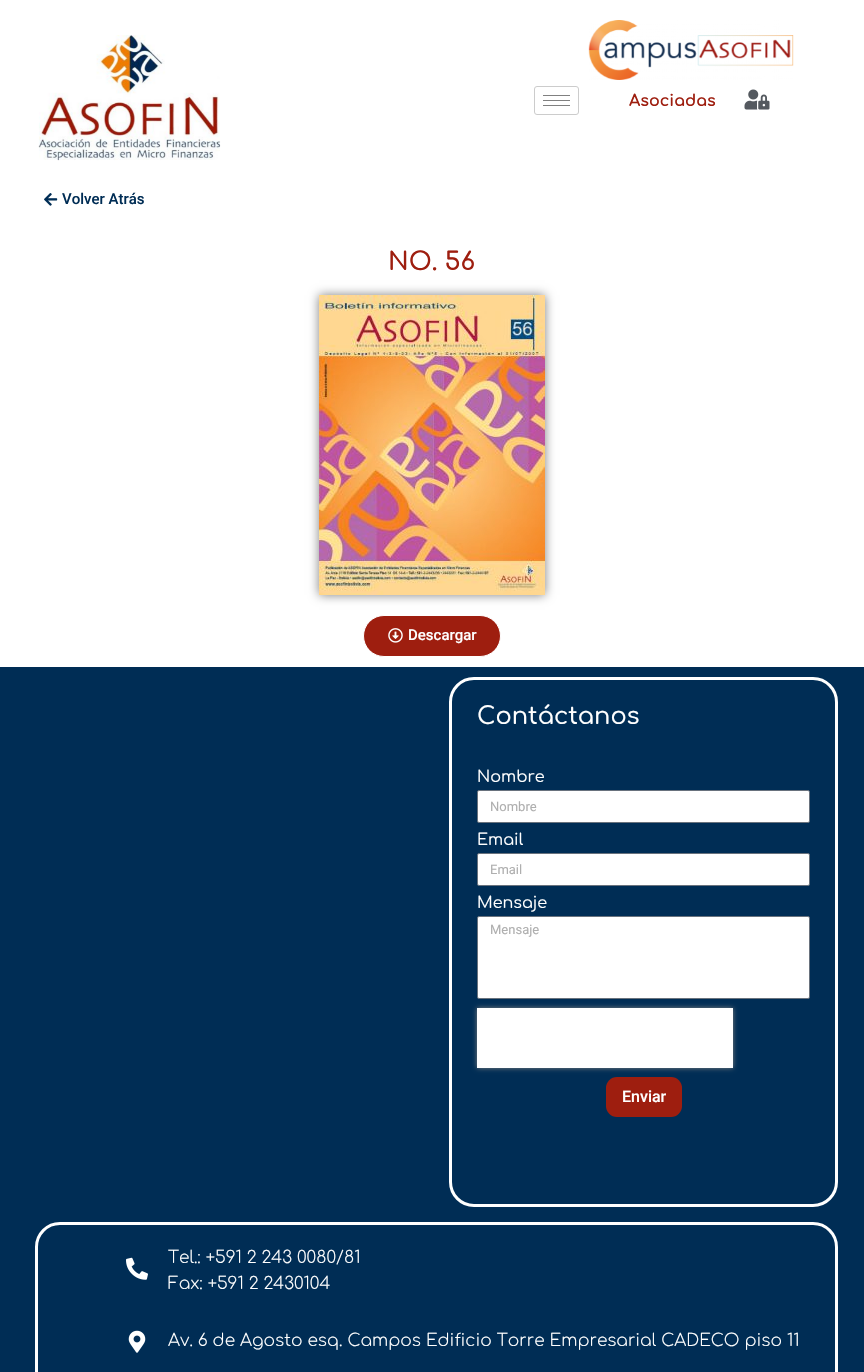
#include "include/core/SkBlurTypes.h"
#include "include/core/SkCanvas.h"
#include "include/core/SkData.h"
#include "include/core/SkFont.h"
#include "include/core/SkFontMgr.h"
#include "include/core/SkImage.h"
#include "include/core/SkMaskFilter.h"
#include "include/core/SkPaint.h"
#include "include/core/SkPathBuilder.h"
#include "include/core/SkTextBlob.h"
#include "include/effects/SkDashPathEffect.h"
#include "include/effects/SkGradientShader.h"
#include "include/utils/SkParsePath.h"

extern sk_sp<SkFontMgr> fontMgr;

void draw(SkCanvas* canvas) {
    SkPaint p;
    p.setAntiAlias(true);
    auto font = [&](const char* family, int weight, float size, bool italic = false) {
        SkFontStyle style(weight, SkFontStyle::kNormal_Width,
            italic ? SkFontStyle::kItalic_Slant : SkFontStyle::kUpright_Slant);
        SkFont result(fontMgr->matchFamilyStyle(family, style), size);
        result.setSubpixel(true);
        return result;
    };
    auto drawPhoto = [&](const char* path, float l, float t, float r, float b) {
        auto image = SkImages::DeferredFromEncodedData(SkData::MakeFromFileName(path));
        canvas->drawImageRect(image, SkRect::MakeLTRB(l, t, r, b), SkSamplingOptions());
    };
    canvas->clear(0xFFFFFFFF);
    drawPhoto("media/1.png", 38, 35, 221, 161);
    p.setStyle(SkPaint::kStroke_Style);
    p.setStrokeWidth(1);
    p.setColor(0xFFCCCCCC);
    canvas->drawRoundRect(SkRect::MakeLTRB(534.5f, 86.5f, 578.5f, 114.5f), 2.5f, 2.5f, p);
    p.setStyle(SkPaint::kFill_Style);
    {
        const struct { float l, t, r, b; SkColor color; } items[] = {
            {543, 95, 570, 96, 0xFF808080},
            {543, 100, 570, 101, 0xFF808080},
            {543, 105, 570, 106, 0xFF808080},
        };
        for (auto [l, t, r, b, color] : items) {
            p.setColor(color);
            canvas->drawRect(SkRect::MakeLTRB(l, t, r, b), p);
        }
    }
    drawPhoto("media/2.png", 588, 20, 794, 80);
    auto font1 = font("Comfortaa", 700, 16);
    p.setColor(0xFF9E1E0F);
    canvas->drawString("Asociadas", 629, 106, font1, p);
    drawPhoto("media/3.png", 744, 89, 770, 110);
    drawPhoto("media/4.png", 44, 193, 58, 206);
    auto font2 = font("Roboto", 500, 15);
    p.setColor(0xFF002D55);
    canvas->drawString("Volver Atrás", 62, 204, font2, p);
    auto font3 = font("Comfortaa", 600, 25);
    p.setColor(0xFF9E1E0F);
    canvas->drawString("NO. 56", 388, 270, font3, p);
    p.setColor(0x80000000);
    p.setMaskFilter(SkMaskFilter::MakeBlur(kNormal_SkBlurStyle, 5));
    canvas->drawRect(SkRect::MakeLTRB(319, 295, 545, 595), p);
    p.setMaskFilter(nullptr);
    drawPhoto("media/5.png", 319, 295, 545, 595);
    p.setColor(0xFF9E1E0F);
    canvas->drawRoundRect(SkRect::MakeLTRB(363.5f, 615.5f, 500.5f, 656.5f), 20.5f, 20.5f, p);
    p.setStyle(SkPaint::kStroke_Style);
    p.setColor(0xFFFFFFFF);
    canvas->drawRoundRect(SkRect::MakeLTRB(363.5f, 615.5f, 500.5f, 656.5f), 20.5f, 20.5f, p);
    drawPhoto("media/6.png", 388, 628, 403, 643);
    p.setStyle(SkPaint::kFill_Style);
    canvas->drawString("Descargar", 408, 640, font2, p);
    p.setColor(0xFF002D55);
    canvas->drawRect(SkRect::MakeLTRB(0, 667, 864, 1372), p);
    p.setStyle(SkPaint::kStroke_Style);
    p.setStrokeWidth(3);
    p.setColor(0xFFFFFFFF);
    canvas->drawRoundRect(SkRect::MakeLTRB(450.5f, 678.5f, 836.5f, 1205.5f), 23.5f, 23.5f, p);
    auto font4 = font("Comfortaa", 500, 24);
    p.setStyle(SkPaint::kFill_Style);
    canvas->drawString("Contáctanos", 477, 724, font4, p);
    auto font5 = font("Comfortaa", 400, 16);
    canvas->drawString("Nombre", 477, 782, font5, p);
    canvas->drawRoundRect(SkRect::MakeLTRB(477.5f, 790.5f, 809.5f, 822.5f), 1.5f, 1.5f, p);
    p.setStyle(SkPaint::kStroke_Style);
    p.setStrokeWidth(1);
    p.setColor(0xFF69727D);
    canvas->drawRoundRect(SkRect::MakeLTRB(477.5f, 790.5f, 809.5f, 822.5f), 1.5f, 1.5f, p);
    auto font6 = font("Roboto", 400, 13);
    p.setStyle(SkPaint::kFill_Style);
    p.setColor(0xFFAFAFAF);
    canvas->drawString("Nombre", 490, 811, font6, p);
    p.setColor(0xFFFFFFFF);
    canvas->drawString("Email", 477, 845, font5, p);
    canvas->drawRoundRect(SkRect::MakeLTRB(477.5f, 853.5f, 809.5f, 885.5f), 1.5f, 1.5f, p);
    p.setStyle(SkPaint::kStroke_Style);
    p.setColor(0xFF69727D);
    canvas->drawRoundRect(SkRect::MakeLTRB(477.5f, 853.5f, 809.5f, 885.5f), 1.5f, 1.5f, p);
    p.setStyle(SkPaint::kFill_Style);
    p.setColor(0xFFAFAFAF);
    canvas->drawString("Email", 490, 874, font6, p);
    p.setColor(0xFFFFFFFF);
    canvas->drawString("Mensaje", 477, 908, font5, p);
    canvas->drawRoundRect(SkRect::MakeLTRB(477.5f, 916.5f, 809.5f, 998.5f), 1.5f, 1.5f, p);
    p.setStyle(SkPaint::kStroke_Style);
    p.setColor(0xFF69727D);
    canvas->drawRoundRect(SkRect::MakeLTRB(477.5f, 916.5f, 809.5f, 998.5f), 1.5f, 1.5f, p);
    p.setStyle(SkPaint::kFill_Style);
    p.setColor(0xFFAFAFAF);
    canvas->drawString("Mensaje", 490, 934, font6, p);
    p.setColor(0xFFFFFFFF);
    canvas->drawRect(SkRect::MakeLTRB(477, 1008, 733, 1068), p);
    canvas->save();
    canvas->clipPath(SkPathBuilder(SkPathFillType::kEvenOdd).moveTo(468, 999).lineTo(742, 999).lineTo(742, 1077).lineTo(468, 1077).close().moveTo(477, 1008).lineTo(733, 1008).lineTo(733, 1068).lineTo(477, 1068).close().detach(), true);
    p.setColor(0xFF808080);
    p.setMaskFilter(SkMaskFilter::MakeBlur(kNormal_SkBlurStyle, 2.5f));
    canvas->drawRect(SkRect::MakeLTRB(477, 1008, 733, 1068), p);
    p.setMaskFilter(nullptr);
    canvas->restore();
    p.setColor(0xFF9E1E0F);
    canvas->drawRoundRect(SkRect::MakeLTRB(606, 1077, 682, 1117), 11, 11, p);
    auto font7 = font("Roboto", 500, 16);
    p.setColor(0xFFFFFFFF);
    canvas->drawString("Enviar", 622, 1102, font7, p);
    p.setStyle(SkPaint::kStroke_Style);
    p.setStrokeWidth(3);
    canvas->drawRoundRect(SkRect::MakeLTRB(36.5f, 1223.5f, 836.5f, 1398.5f), 23.5f, 23.5f, p);
    drawPhoto("media/7.png", 126, 1257, 148, 1280);
    auto font8 = font("Comfortaa", 300, 17);
    p.setStyle(SkPaint::kFill_Style);
    canvas->drawString("Tel.: +591 2 243 0080/81", 168, 1263, font8, p);
    canvas->drawString("Fax: +591 2 2430104", 168, 1289, font8, p);
    drawPhoto("media/8.png", 128, 1330, 146, 1353);
    canvas->drawString("Av. 6 de Agosto esq. Campos Edificio Torre Empresarial CADECO piso 11", 168, 1346, font8, p);
}
